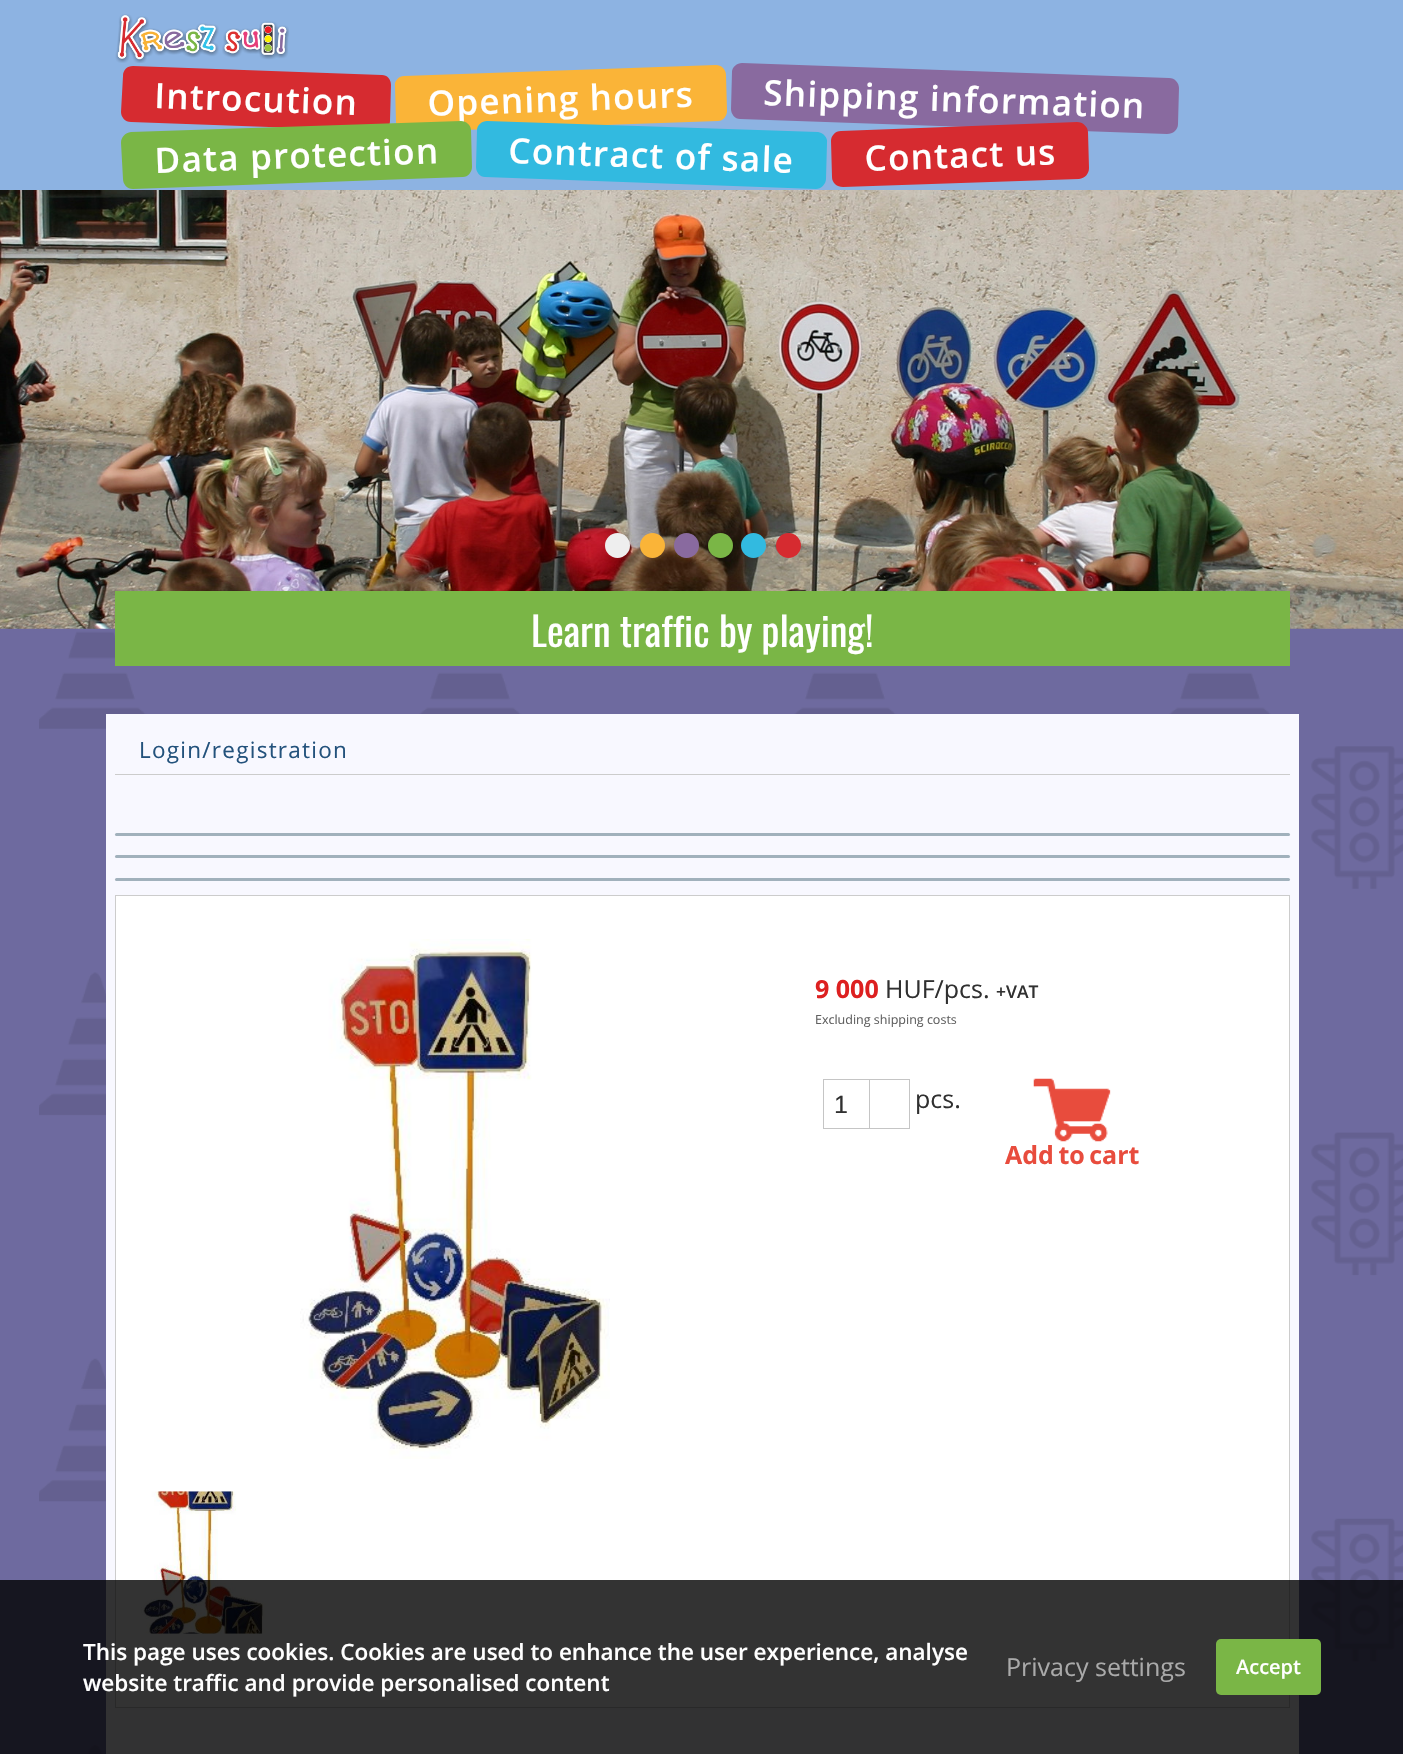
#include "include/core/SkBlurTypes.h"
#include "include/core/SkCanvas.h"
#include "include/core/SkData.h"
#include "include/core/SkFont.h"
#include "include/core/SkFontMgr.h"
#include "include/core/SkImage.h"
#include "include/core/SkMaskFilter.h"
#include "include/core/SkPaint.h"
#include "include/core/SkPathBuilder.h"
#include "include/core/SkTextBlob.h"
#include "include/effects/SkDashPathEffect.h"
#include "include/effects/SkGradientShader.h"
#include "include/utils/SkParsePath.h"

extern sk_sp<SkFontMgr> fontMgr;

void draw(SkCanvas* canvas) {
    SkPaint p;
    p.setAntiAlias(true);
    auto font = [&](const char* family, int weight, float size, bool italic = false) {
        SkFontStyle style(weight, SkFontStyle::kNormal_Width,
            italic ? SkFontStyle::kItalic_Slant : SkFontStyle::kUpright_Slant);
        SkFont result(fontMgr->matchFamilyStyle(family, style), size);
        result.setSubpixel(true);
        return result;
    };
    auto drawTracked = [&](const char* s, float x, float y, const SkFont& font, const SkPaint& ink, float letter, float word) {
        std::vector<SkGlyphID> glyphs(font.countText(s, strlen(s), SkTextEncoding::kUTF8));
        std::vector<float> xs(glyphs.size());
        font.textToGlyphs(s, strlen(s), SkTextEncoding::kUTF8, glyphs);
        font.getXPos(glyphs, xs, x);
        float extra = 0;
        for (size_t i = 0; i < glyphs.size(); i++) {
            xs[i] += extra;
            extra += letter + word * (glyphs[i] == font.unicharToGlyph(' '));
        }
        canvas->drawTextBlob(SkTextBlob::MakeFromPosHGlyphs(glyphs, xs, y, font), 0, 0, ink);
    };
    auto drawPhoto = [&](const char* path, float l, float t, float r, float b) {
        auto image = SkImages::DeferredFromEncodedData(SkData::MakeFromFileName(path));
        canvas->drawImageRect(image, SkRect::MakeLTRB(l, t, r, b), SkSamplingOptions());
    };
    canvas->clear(0xFF6E6A9F);
    p.setColor(0xFF8DB3E2);
    canvas->drawRect(SkRect::MakeLTRB(0, 0, 1403, 190), p);
    drawPhoto("media/1.png", 115, 14, 289, 63);
    p.setColor(0xFFD62B30);
    canvas->drawPath(SkPathBuilder().moveTo(133, 66).lineTo(382, 75).cubicTo(387, 75, 391, 79, 391, 85).lineTo(390, 121).cubicTo(390, 127, 385, 131, 380, 131).lineTo(131, 122).cubicTo(125, 122, 121, 117, 121, 112).lineTo(123, 76).cubicTo(123, 70, 127, 66, 133, 66).close().detach(), p);
    auto font1 = font("Open Sans", 600, 35);
    p.setColor(0xFFFFFFFF);
    canvas->save();
    canvas->rotate(2, 154, 108);
    drawTracked("Introcution", 154, 108, font1, p, 1.25f, 0);
    canvas->restore();
    p.setColor(0xFFFAB438);
    canvas->drawPath(SkPathBuilder().moveTo(404, 76).lineTo(716, 65).cubicTo(721, 65, 726, 69, 726, 75).lineTo(727, 111).cubicTo(727, 116, 723, 121, 718, 121).lineTo(406, 132).cubicTo(401, 132, 396, 128, 396, 122).lineTo(395, 86).cubicTo(394, 81, 399, 76, 404, 76).close().detach(), p);
    p.setColor(0xFFFFFFFF);
    canvas->save();
    canvas->rotate(-2, 428, 116);
    drawTracked("Opening hours", 428, 116, font1, p, 1.25f, 0);
    canvas->restore();
    p.setColor(0xFF896A9F);
    canvas->drawPath(SkPathBuilder().moveTo(742, 63).lineTo(1169, 78).cubicTo(1175, 78, 1179, 83, 1179, 88).lineTo(1178, 124).cubicTo(1178, 130, 1173, 134, 1167, 134).lineTo(740, 119).cubicTo(735, 119, 731, 114, 731, 109).lineTo(732, 72).cubicTo(732, 67, 737, 63, 742, 63).close().detach(), p);
    p.setColor(0xFFFFFFFF);
    canvas->save();
    canvas->rotate(2, 763, 105);
    drawTracked("Shipping information", 763, 105, font1, p, 1.25f, 0);
    canvas->restore();
    p.setColor(0xFF7AB646);
    canvas->drawPath(SkPathBuilder().moveTo(131, 132).lineTo(461, 121).cubicTo(466, 121, 471, 125, 471, 130).lineTo(472, 167).cubicTo(472, 172, 468, 177, 463, 177).lineTo(133, 189).cubicTo(127, 189, 123, 184, 123, 179).lineTo(121, 143).cubicTo(121, 137, 125, 133, 131, 132).close().detach(), p);
    p.setColor(0xFFFFFFFF);
    canvas->save();
    canvas->rotate(-2, 155, 173);
    drawTracked("Data protection", 155, 173, font1, p, 1.25f, 0);
    canvas->restore();
    p.setColor(0xFF32BAE0);
    canvas->drawPath(SkPathBuilder().moveTo(487, 121).lineTo(818, 132).cubicTo(823, 133, 828, 137, 827, 143).lineTo(826, 179).cubicTo(826, 184, 821, 189, 816, 189).lineTo(485, 177).cubicTo(480, 177, 476, 172, 476, 167).lineTo(477, 130).cubicTo(477, 125, 482, 121, 487, 121).close().detach(), p);
    p.setColor(0xFFFFFFFF);
    canvas->save();
    canvas->rotate(2, 508, 163);
    drawTracked("Contract of sale", 508, 163, font1, p, 1.25f, 0);
    canvas->restore();
    p.setColor(0xFFD62B30);
    canvas->drawPath(SkPathBuilder().moveTo(841, 131).lineTo(1077, 122).cubicTo(1083, 122, 1088, 127, 1088, 132).lineTo(1089, 168).cubicTo(1089, 174, 1085, 178, 1079, 179).lineTo(843, 187).cubicTo(837, 187, 832, 183, 832, 177).lineTo(831, 141).cubicTo(831, 136, 835, 131, 841, 131).close().detach(), p);
    p.setColor(0xFFFFFFFF);
    canvas->save();
    canvas->rotate(-2, 865, 171);
    drawTracked("Contact us", 865, 171, font1, p, 1.25f, 0);
    canvas->restore();
    drawPhoto("media/2.png", 0, 190, 1403, 629);
    p.setColor(0xFFEEEEEE);
    canvas->drawCircle(617.5f, 545.5f, 12.5f, p);
    p.setColor(0xFFFAB438);
    canvas->drawCircle(652.5f, 545.5f, 12.5f, p);
    p.setColor(0xFF896A9F);
    canvas->drawCircle(686.5f, 545.5f, 12.5f, p);
    p.setColor(0xFF7AB646);
    canvas->drawCircle(720.5f, 545.5f, 12.5f, p);
    p.setColor(0xFF32BAE0);
    canvas->drawCircle(753.5f, 545.5f, 12.5f, p);
    p.setColor(0xFFD62B30);
    canvas->drawCircle(788.5f, 545.5f, 12.5f, p);
    drawPhoto("media/3.png", 39, 631, 1271, 1754);
    drawPhoto("media/4.png", 1311, 746, 1403, 1662);
    p.setColor(0xFF7AB646);
    canvas->drawRect(SkRect::MakeLTRB(115, 591, 1290, 666), p);
    auto font2 = font("Oswald", 400, 40);
    p.setColor(0xFFFFFFFF);
    canvas->drawString("Learn traffic by playing!", 531, 647, font2, p);
    p.setColor(0xFFF8F8FF);
    canvas->drawRect(SkRect::MakeLTRB(106, 714, 1299, 1754), p);
    p.setColor(0xFFCCCCCC);
    canvas->drawRect(SkRect::MakeLTRB(115, 774, 1290, 775), p);
    auto font3 = font("Open Sans", 400, 22.5f);
    p.setColor(0xFF23527C);
    drawTracked("Login/registration", 139, 758, font3, p, 1.25f, 0);
    p.setColor(0xFFA1B1BC);
    canvas->drawRoundRect(SkRect::MakeLTRB(115, 833, 1290, 836), 1.5f, 1.5f, p);
    canvas->drawRoundRect(SkRect::MakeLTRB(115, 855, 1290, 858), 1.5f, 1.5f, p);
    canvas->drawRoundRect(SkRect::MakeLTRB(115, 878, 1290, 881), 1.5f, 1.5f, p);
    p.setColor(0xFFFFFFFF);
    canvas->drawRect(SkRect::MakeLTRB(115.5f, 895.5f, 1289.5f, 1707.5f), p);
    p.setStyle(SkPaint::kStroke_Style);
    p.setStrokeWidth(1);
    p.setColor(0xFFCCCCCC);
    canvas->drawRect(SkRect::MakeLTRB(115.5f, 895.5f, 1289.5f, 1707.5f), p);
    drawPhoto("media/5.png", 300, 939, 610, 1459);
    drawPhoto("media/6.png", 141, 1491, 266, 1634);
    auto font4 = font("Open Sans", 700, 25);
    p.setStyle(SkPaint::kFill_Style);
    p.setColor(0xFFDD2020);
    canvas->drawString("9 000", 815, 998, font4, p);
    auto font5 = font("Open Sans", 400, 25);
    p.setColor(0xFF303030);
    canvas->drawString("HUF/pcs.", 885, 998, font5, p);
    auto font6 = font("Open Sans", 600, 17.5f);
    canvas->drawString("+VAT", 996, 998, font6, p);
    auto font7 = font("Open Sans", 400, 12.5f);
    p.setColor(0xFF606060);
    canvas->drawString("Excluding shipping costs", 815, 1024, font7, p);
    p.setStyle(SkPaint::kStroke_Style);
    p.setColor(0xFFC5C5C5);
    canvas->drawRect(SkRect::MakeLTRB(823.5f, 1079.5f, 909.5f, 1128.5f), p);
    auto font8 = font("Liberation Sans", 400, 25);
    p.setStyle(SkPaint::kFill_Style);
    p.setColor(0xFF303030);
    canvas->drawString("1", 834, 1113, font8, p);
    p.setColor(0xFFC5C5C5);
    canvas->drawRect(SkRect::MakeLTRB(869, 1080, 870, 1128), p);
    p.setColor(0xFF303030);
    canvas->drawString("pcs.", 915, 1108, font5, p);
    drawPhoto("media/7.png", 1033, 1078, 1111, 1142);
    p.setColor(0xFFE84C3D);
    drawTracked("Add to cart", 1005, 1164, font4, p, 0, -2);
    p.setColor(0xCC000000);
    canvas->drawRect(SkRect::MakeLTRB(0, 1580, 1403, 1754), p);
    auto font9 = font("Open Sans", 600, 22.5f);
    p.setColor(0xFFFFFFFF);
    canvas->drawString("This page uses cookies. Cookies are used to enhance the user experience, analyse", 83, 1660, font9, p);
    canvas->drawString("website traffic and provide personalised content", 83, 1691, font9, p);
    p.setColor(0xFFAAAAAA);
    canvas->drawString("Privacy settings", 1006, 1676, font5, p);
    p.setColor(0xFF7AB646);
    canvas->drawRoundRect(SkRect::MakeLTRB(1216, 1639, 1321, 1695), 5, 5, p);
    auto font10 = font("Open Sans", 600, 20);
    p.setColor(0xFFFFFFFF);
    canvas->drawString("Accept", 1236, 1674, font10, p);
}
